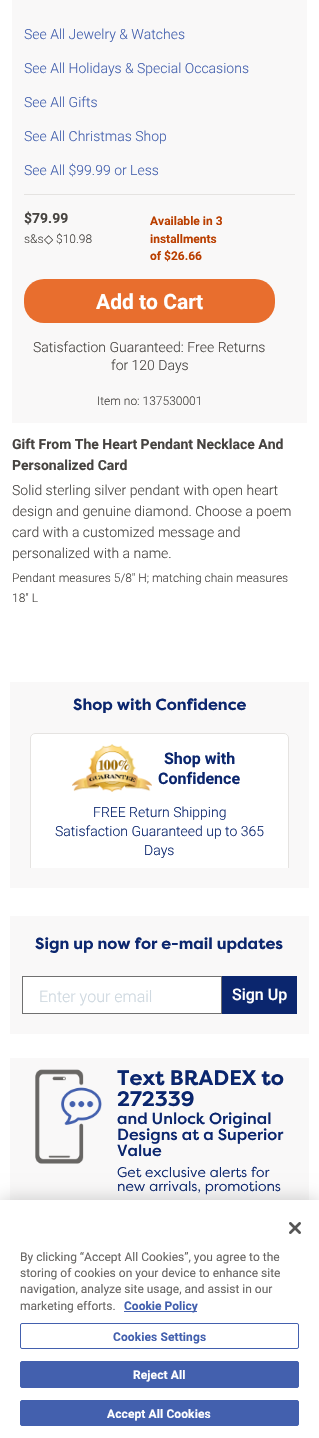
#include "include/core/SkBlurTypes.h"
#include "include/core/SkCanvas.h"
#include "include/core/SkData.h"
#include "include/core/SkFont.h"
#include "include/core/SkFontMgr.h"
#include "include/core/SkImage.h"
#include "include/core/SkMaskFilter.h"
#include "include/core/SkPaint.h"
#include "include/core/SkPathBuilder.h"
#include "include/core/SkTextBlob.h"
#include "include/effects/SkDashPathEffect.h"
#include "include/effects/SkGradientShader.h"
#include "include/utils/SkParsePath.h"

extern sk_sp<SkFontMgr> fontMgr;

void draw(SkCanvas* canvas) {
    SkPaint p;
    p.setAntiAlias(true);
    auto font = [&](const char* family, int weight, float size, bool italic = false) {
        SkFontStyle style(weight, SkFontStyle::kNormal_Width,
            italic ? SkFontStyle::kItalic_Slant : SkFontStyle::kUpright_Slant);
        SkFont result(fontMgr->matchFamilyStyle(family, style), size);
        result.setSubpixel(true);
        return result;
    };
    auto drawTracked = [&](const char* s, float x, float y, const SkFont& font, const SkPaint& ink, float letter, float word) {
        std::vector<SkGlyphID> glyphs(font.countText(s, strlen(s), SkTextEncoding::kUTF8));
        std::vector<float> xs(glyphs.size());
        font.textToGlyphs(s, strlen(s), SkTextEncoding::kUTF8, glyphs);
        font.getXPos(glyphs, xs, x);
        float extra = 0;
        for (size_t i = 0; i < glyphs.size(); i++) {
            xs[i] += extra;
            extra += letter + word * (glyphs[i] == font.unicharToGlyph(' '));
        }
        canvas->drawTextBlob(SkTextBlob::MakeFromPosHGlyphs(glyphs, xs, y, font), 0, 0, ink);
    };
    auto drawPhoto = [&](const char* path, float l, float t, float r, float b) {
        auto image = SkImages::DeferredFromEncodedData(SkData::MakeFromFileName(path));
        canvas->drawImageRect(image, SkRect::MakeLTRB(l, t, r, b), SkSamplingOptions());
    };
    canvas->clear(0xFFFFFFFF);
    p.setColor(0xFFF9F8F8);
    canvas->drawRect(SkRect::MakeLTRB(12, 0, 307, 423), p);
    p.setColor(0xFFE5E3E1);
    canvas->drawRect(SkRect::MakeLTRB(24, 194, 295, 195), p);
    auto font1 = font("Roboto", 300, 14);
    p.setColor(0xFF4360AE);
    {
        const struct { const char* s; float x, y; } items[] = {
            {"See All Jewelry & Watches", 24, 39},
            {"See All Holidays & Special Occasions", 24, 73},
            {"See All Gifts", 24, 107},
            {"See All Christmas Shop", 24, 141},
            {"See All $99.99 or Less", 24, 175},
        };
        for (auto [s, x, y] : items) {
            canvas->drawString(s, x, y, font1, p);
        }
    }
    auto font2 = font("Roboto", 700, 14);
    p.setColor(0xFF474441);
    canvas->drawString("$79.99", 24, 223, font2, p);
    auto font3 = font("Roboto", 300, 12);
    canvas->drawString("s&s", 24, 243, font3, p);
    auto font4 = font("DejaVu Sans", 400, 12);
    canvas->drawString("◇", 44, 243, font4, p);
    canvas->drawString("$10.98", 56, 243, font3, p);
    auto font5 = font("Roboto", 700, 12);
    p.setColor(0xFFBA3F00);
    {
        const struct { const char* s; float x, y; } items[] = {
            {"Available in 3", 150, 225},
            {"installments", 150, 243},
            {"of $26.66", 150, 260},
        };
        for (auto [s, x, y] : items) {
            canvas->drawString(s, x, y, font5, p);
        }
    }
    p.setColor(0xFFE86E2E);
    canvas->drawRoundRect(SkRect::MakeLTRB(24, 279, 275, 323), 20, 20, p);
    auto font6 = font("Roboto", 700, 21);
    p.setColor(0xFFFFFFFF);
    canvas->drawString("Add to Cart", 96, 309, font6, p);
    p.setColor(0xFF474441);
    canvas->drawString("Satisfaction Guaranteed: Free Returns", 33, 352, font1, p);
    canvas->drawString("for 120 Days", 111, 370, font1, p);
    canvas->drawString("Item no: 137530001", 97, 405, font3, p);
    canvas->drawString("Gift From The Heart Pendant Necklace And", 12, 449, font2, p);
    canvas->drawString("Personalized Card", 12, 470, font2, p);
    {
        const struct { const char* s; float x, y; } items[] = {
            {"Solid sterling silver pendant with open heart", 12, 495},
            {"design and genuine diamond. Choose a poem", 12, 516},
            {"card with a customized message and", 12, 537},
            {"personalized with a name.", 12, 558},
        };
        for (auto [s, x, y] : items) {
            canvas->drawString(s, x, y, font1, p);
        }
    }
    canvas->drawString("Pendant measures 5/8\" H; matching chain measures", 12, 582, font3, p);
    canvas->drawString("18\" L", 12, 602, font3, p);
    p.setColor(0xFFF9F8F8);
    canvas->drawRect(SkRect::MakeLTRB(10, 682, 309, 713), p);
    auto font7 = font("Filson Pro", 700, 16);
    p.setColor(0xFF0B266E);
    canvas->drawString("Shop with Confidence", 73, 710, font7, p);
    p.setColor(0xFFF9F8F8);
    canvas->drawRect(SkRect::MakeLTRB(10, 713, 309, 888), p);
    p.setColor(0xFFFFFFFF);
    canvas->drawPath(SkPathBuilder().moveTo(35, 733).lineTo(284, 733).cubicTo(287, 733, 289, 735, 289, 738).lineTo(289, 868).lineTo(30, 868).lineTo(30, 738).cubicTo(30, 735, 32, 733, 35, 733).close().detach(), p);
    canvas->save();
    canvas->clipRect(SkRect::MakeLTRB(30, 733, 289, 868));
    p.setStyle(SkPaint::kStroke_Style);
    p.setStrokeWidth(1);
    p.setColor(0xFFE5E3E1);
    canvas->drawRoundRect(SkRect::MakeLTRB(30.5f, 733.5f, 288.5f, 872.5f), 4.5f, 4.5f, p);
    canvas->restore();
    drawPhoto("media/1.png", 72, 744, 152, 792);
    auto font8 = font("Roboto", 700, 16);
    p.setStyle(SkPaint::kFill_Style);
    p.setColor(0xFF0B266E);
    canvas->drawString("Shop with", 164, 764, font8, p);
    canvas->drawString("Confidence", 158, 784, font8, p);
    {
        const struct { const char* s; float x, y; } items[] = {
            {"FREE Return Shipping", 93, 817},
            {"Satisfaction Guaranteed up to 365", 55, 836},
            {"Days", 144, 855},
        };
        for (auto [s, x, y] : items) {
            canvas->drawString(s, x, y, font1, p);
        }
    }
    p.setColor(0xFFF9F8F8);
    canvas->drawRect(SkRect::MakeLTRB(10, 916, 309, 1034), p);
    p.setColor(0xFF0B266E);
    canvas->drawString("Sign up now for e-mail updates", 35, 949, font7, p);
    p.setColor(0xFFFFFFFF);
    canvas->drawRect(SkRect::MakeLTRB(22.5f, 976.5f, 221.5f, 1013.5f), p);
    p.setStyle(SkPaint::kStroke_Style);
    p.setColor(0xFF707070);
    canvas->drawRect(SkRect::MakeLTRB(22.5f, 976.5f, 221.5f, 1013.5f), p);
    auto font9 = font("Roboto", 300, 16);
    p.setStyle(SkPaint::kFill_Style);
    p.setColor(0xFFCDD7DF);
    canvas->drawString("Enter your email", 39, 1002, font9, p);
    p.setColor(0xFF0B266E);
    canvas->drawRect(SkRect::MakeLTRB(222, 976, 297, 1014), p);
    auto font10 = font("Roboto", 500, 16);
    p.setColor(0xFFFFFFFF);
    canvas->drawString("Sign Up", 232, 1000, font10, p);
    p.setColor(0xFFF9F8F8);
    canvas->drawRect(SkRect::MakeLTRB(10, 1058, 309, 1200), p);
    drawPhoto("media/2.png", 35, 1069, 102, 1164);
    auto font11 = font("Filson Pro", 700, 21);
    p.setColor(0xFF0B266E);
    canvas->drawString("Text BRADEX to", 117, 1085, font11, p);
    canvas->drawString("272339", 117, 1106, font11, p);
    auto font12 = font("Filson Pro", 500, 16);
    {
        const struct { const char* s; float x, y; } items[] = {
            {"and Unlock Original", 117, 1124},
            {"Designs at a Superior", 117, 1140},
            {"Value", 117, 1156},
        };
        for (auto [s, x, y] : items) {
            canvas->drawString(s, x, y, font12, p);
        }
    }
    auto font13 = font("Filson Pro", 400, 14);
    canvas->drawString("Get exclusive alerts for", 117, 1177, font13, p);
    canvas->drawString("new arrivals, promotions", 117, 1191, font13, p);
    p.setColor(0x33000000);
    p.setMaskFilter(SkMaskFilter::MakeBlur(kNormal_SkBlurStyle, 9));
    canvas->drawRect(SkRect::MakeLTRB(0, 1200, 319, 1438), p);
    p.setMaskFilter(nullptr);
    p.setColor(0xFFFFFFFF);
    canvas->drawRect(SkRect::MakeLTRB(0, 1200, 319, 1438), p);
    drawPhoto("media/3.png", 289, 1222, 301, 1234);
    auto font14 = font("Roboto", 400, 12);
    p.setColor(0xFF686664);
    {
        const struct { const char* s; float x, y; } items[] = {
            {"By clicking “Accept All Cookies”, you agree to the", 20, 1261},
            {"storing of cookies on your device to enhance site", 20, 1277},
            {"navigation, analyze site usage, and assist in our", 20, 1293},
            {"marketing efforts.", 20, 1310},
        };
        for (auto [s, x, y] : items) {
            canvas->drawString(s, x, y, font14, p);
        }
    }
    p.setColor(0xFF4360AE);
    canvas->drawRect(SkRect::MakeLTRB(124, 1311, 197, 1312), p);
    canvas->drawString("Cookie Policy", 124, 1310, font5, p);
    p.setStyle(SkPaint::kStroke_Style);
    canvas->drawRoundRect(SkRect::MakeLTRB(20.5f, 1323.5f, 298.5f, 1348.5f), 1.5f, 1.5f, p);
    p.setStyle(SkPaint::kFill_Style);
    drawTracked("Cookies Settings", 113, 1341, font5, p, 0.1f, 0);
    canvas->drawRoundRect(SkRect::MakeLTRB(20.5f, 1361.5f, 298.5f, 1387.5f), 1.5f, 1.5f, p);
    p.setStyle(SkPaint::kStroke_Style);
    canvas->drawRoundRect(SkRect::MakeLTRB(20.5f, 1361.5f, 298.5f, 1387.5f), 1.5f, 1.5f, p);
    p.setStyle(SkPaint::kFill_Style);
    p.setColor(0xFFFFFFFF);
    drawTracked("Reject All", 133, 1379, font5, p, 0.1f, 0);
    p.setColor(0xFF4360AE);
    canvas->drawRoundRect(SkRect::MakeLTRB(20.5f, 1400.5f, 298.5f, 1425.5f), 1.5f, 1.5f, p);
    p.setStyle(SkPaint::kStroke_Style);
    canvas->drawRoundRect(SkRect::MakeLTRB(20.5f, 1400.5f, 298.5f, 1425.5f), 1.5f, 1.5f, p);
    p.setStyle(SkPaint::kFill_Style);
    p.setColor(0xFFFFFFFF);
    drawTracked("Accept All Cookies", 107, 1418, font5, p, 0.1f, 0);
}
